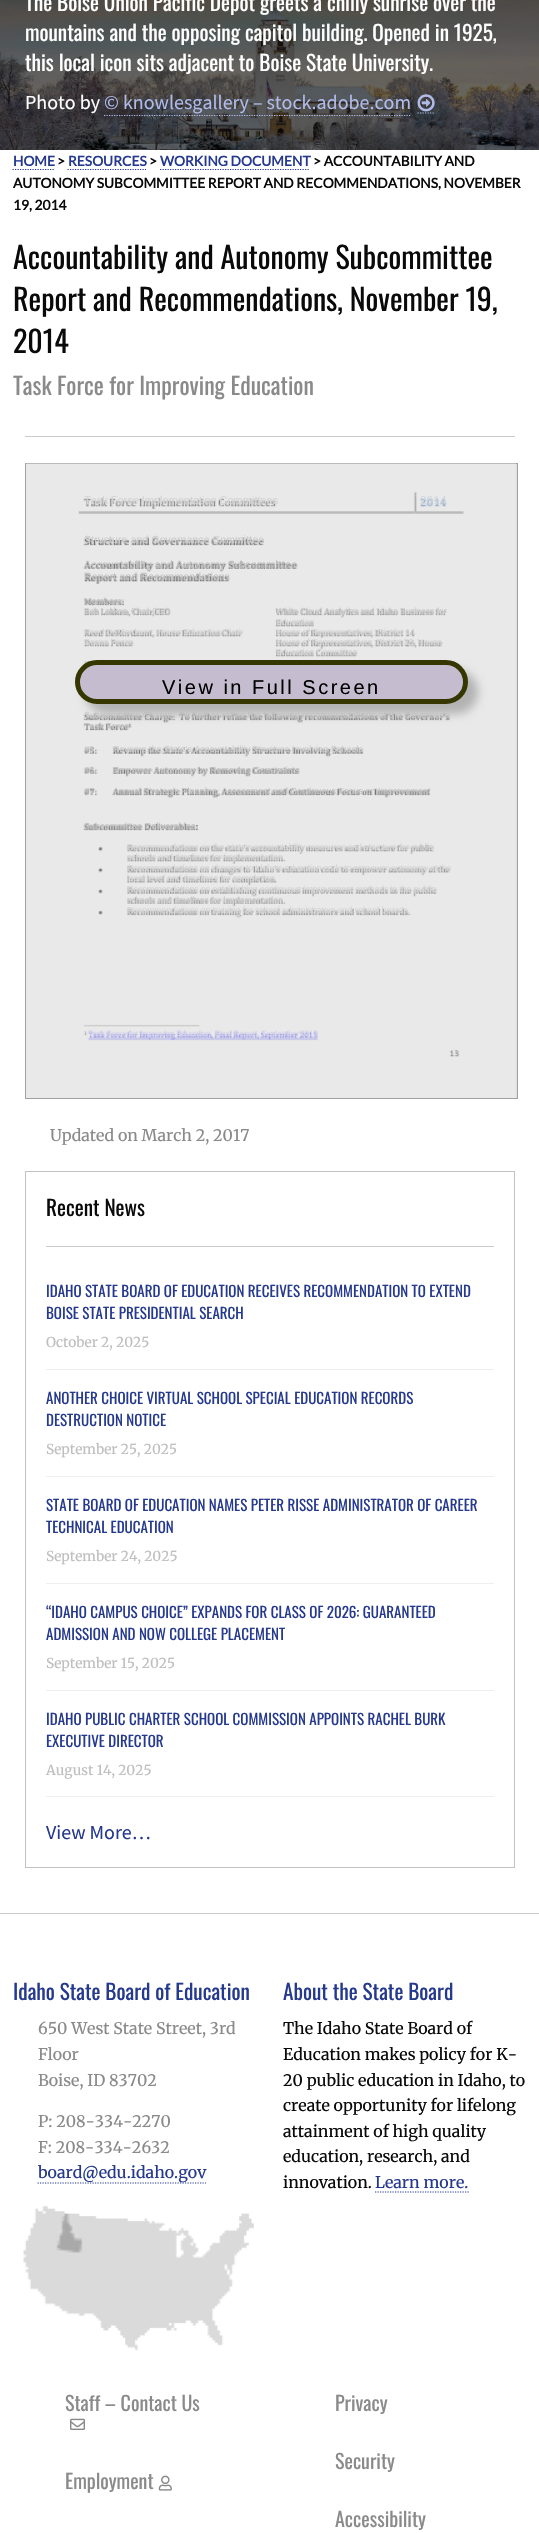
#include "include/core/SkBlurTypes.h"
#include "include/core/SkCanvas.h"
#include "include/core/SkData.h"
#include "include/core/SkFont.h"
#include "include/core/SkFontMgr.h"
#include "include/core/SkImage.h"
#include "include/core/SkMaskFilter.h"
#include "include/core/SkPaint.h"
#include "include/core/SkPathBuilder.h"
#include "include/core/SkTextBlob.h"
#include "include/effects/SkDashPathEffect.h"
#include "include/effects/SkGradientShader.h"
#include "include/utils/SkParsePath.h"

extern sk_sp<SkFontMgr> fontMgr;

void draw(SkCanvas* canvas) {
    SkPaint p;
    p.setAntiAlias(true);
    auto font = [&](const char* family, int weight, float size, bool italic = false) {
        SkFontStyle style(weight, SkFontStyle::kNormal_Width,
            italic ? SkFontStyle::kItalic_Slant : SkFontStyle::kUpright_Slant);
        SkFont result(fontMgr->matchFamilyStyle(family, style), size);
        result.setSubpixel(true);
        return result;
    };
    auto drawTracked = [&](const char* s, float x, float y, const SkFont& font, const SkPaint& ink, float letter, float word) {
        std::vector<SkGlyphID> glyphs(font.countText(s, strlen(s), SkTextEncoding::kUTF8));
        std::vector<float> xs(glyphs.size());
        font.textToGlyphs(s, strlen(s), SkTextEncoding::kUTF8, glyphs);
        font.getXPos(glyphs, xs, x);
        float extra = 0;
        for (size_t i = 0; i < glyphs.size(); i++) {
            xs[i] += extra;
            extra += letter + word * (glyphs[i] == font.unicharToGlyph(' '));
        }
        canvas->drawTextBlob(SkTextBlob::MakeFromPosHGlyphs(glyphs, xs, y, font), 0, 0, ink);
    };
    auto drawPhoto = [&](const char* path, float l, float t, float r, float b) {
        auto image = SkImages::DeferredFromEncodedData(SkData::MakeFromFileName(path));
        canvas->drawImageRect(image, SkRect::MakeLTRB(l, t, r, b), SkSamplingOptions());
    };
    canvas->clear(0xFFFFFFFF);
    drawPhoto("media/1.png", 0, 0, 539, 150);
    auto font1 = font("Oswald", 400, 21.25f);
    p.setColor(0xFFFFFFFF);
    {
        const struct { const char* s; float x, y; } items[] = {
            {"The Boise Union Pacific Depot greets a chilly sunrise over the", 25, 11},
            {"mountains and the opposing capitol building. Opened in 1925,", 25, 41},
            {"this local icon sits adjacent to Boise State University.", 25, 71},
        };
        for (auto [s, x, y] : items) {
            canvas->drawString(s, x, y, font1, p);
        }
    }
    auto font2 = font("Source Sans Pro", 400, 20);
    canvas->drawString("Photo by", 25, 109, font2, p);
    p.setStyle(SkPaint::kStroke_Style);
    p.setStrokeWidth(1.2f);
    p.setColor(0xFFB0BBEA);
    p.setPathEffect(SkDashPathEffect::Make({{1.25f, 1.25f}}, 0));
    canvas->drawPath(SkPathBuilder().moveTo(104, 115.5f).lineTo(411, 115.5f).detach(), p);
    p.setPathEffect(nullptr);
    p.setPathEffect(SkDashPathEffect::Make({{1.25f, 1.25f}}, 0));
    canvas->drawPath(SkPathBuilder().moveTo(417.5f, 113).lineTo(434, 113).detach(), p);
    p.setPathEffect(nullptr);
    p.setStyle(SkPaint::kFill_Style);
    canvas->drawString("© knowlesgallery – stock.adobe.com", 104, 109, font2, p);
    drawPhoto("media/2.png", 417, 94, 435, 112);
    auto font3 = font("Lato", 700, 13.75f);
    p.setColor(0xFF25398E);
    canvas->drawString("HOME", 13, 166, font3, p);
    p.setStyle(SkPaint::kStroke_Style);
    p.setPathEffect(SkDashPathEffect::Make({{1.25f, 1.25f}}, 0));
    canvas->drawPath(SkPathBuilder().moveTo(12.5f, 169.5f).lineTo(55, 169.5f).detach(), p);
    p.setPathEffect(nullptr);
    p.setStyle(SkPaint::kFill_Style);
    p.setColor(0xFF0A0A0A);
    canvas->drawString(">", 57, 166, font3, p);
    p.setColor(0xFF25398E);
    canvas->drawString("RESOURCES", 68, 166, font3, p);
    p.setStyle(SkPaint::kStroke_Style);
    p.setPathEffect(SkDashPathEffect::Make({{1.25f, 1.25f}}, 0));
    canvas->drawPath(SkPathBuilder().moveTo(67.5f, 169.5f).lineTo(146, 169.5f).detach(), p);
    p.setPathEffect(nullptr);
    p.setStyle(SkPaint::kFill_Style);
    p.setColor(0xFF0A0A0A);
    canvas->drawString(">", 149, 166, font3, p);
    p.setColor(0xFF25398E);
    canvas->drawString("WORKING DOCUMENT", 160, 166, font3, p);
    p.setStyle(SkPaint::kStroke_Style);
    p.setPathEffect(SkDashPathEffect::Make({{1.25f, 1.25f}}, 0));
    canvas->drawPath(SkPathBuilder().moveTo(160, 169.5f).lineTo(310, 169.5f).detach(), p);
    p.setPathEffect(nullptr);
    p.setStyle(SkPaint::kFill_Style);
    p.setColor(0xFF0A0A0A);
    {
        const struct { const char* s; float x, y; } items[] = {
            {"> ACCOUNTABILITY AND", 313, 166},
            {"AUTONOMY SUBCOMMITTEE REPORT AND RECOMMENDATIONS, NOVEMBER", 13, 188},
            {"19, 2014", 13, 210},
        };
        for (auto [s, x, y] : items) {
            canvas->drawString(s, x, y, font3, p);
        }
    }
    auto font4 = font("Oswald", 400, 30);
    {
        const struct { const char* s; float x, y; } items[] = {
            {"Accountability and Autonomy Subcommittee", 13, 269},
            {"Report and Recommendations, November 19,", 13, 311},
            {"2014", 13, 353},
        };
        for (auto [s, x, y] : items) {
            canvas->drawString(s, x, y, font4, p);
        }
    }
    auto font5 = font("Oswald", 400, 23.75f);
    p.setColor(0xFF8A8A8A);
    canvas->drawString("Task Force for Improving Education", 13, 395, font5, p);
    p.setColor(0xFFCACACA);
    canvas->drawRect(SkRect::MakeLTRB(25, 436, 515, 437), p);
    p.setColor(0xFFD3D3D3);
    canvas->drawRect(SkRect::MakeLTRB(516, 464, 517, 1098), p);
    p.setStyle(SkPaint::kStroke_Style);
    p.setStrokeWidth(1);
    p.setColor(0xFFA1A1A1);
    canvas->drawRect(SkRect::MakeLTRB(25.5f, 463.5f, 517.5f, 1098.5f), p);
    p.setStyle(SkPaint::kFill_Style);
    p.setColor(0xFFE9E9E9);
    canvas->drawRect(SkRect::MakeLTRB(26, 464, 516, 1098), p);
    drawPhoto("media/3.png", 26, 463, 517, 1098);
    auto font6 = font("Liberation Sans", 400, 11.25f);
    p.setColor(0xFFD4D4D4);
    drawTracked("Task Force Implementation Committees", 84, 504, font6, p, -0.15f, 0);
    p.setColor(0xFFCED6DF);
    drawTracked("2014", 420, 504, font6, p, 0.5f, 0);
    auto font7 = font("Liberation Sans", 400, 10.4f);
    p.setColor(0xFFCCCCCC);
    drawTracked("Structure and Governance Committee", 84, 543, font7, p, 0.15f, 0);
    p.setColor(0xFFBFBFBF);
    drawTracked("Accountability and Autonomy", 84, 568, font7, p, 0.25f, 0);
    drawTracked("Subc", 228, 568, font7, p, -0.5f, 0);
    p.setColor(0xFFB7B7B7);
    drawTracked("ommittee", 251, 568, font7, p, 0.5f, 0);
    p.setColor(0xFFBFBFBF);
    drawTracked("Report and Recommendations", 84, 580, font7, p, 0.2f, 0);
    auto font8 = font("Liberation Sans", 400, 8.85f);
    drawTracked("Members:", 84, 604, font8, p, 0.1f, 0);
    p.setColor(0xFFCCCCCC);
    drawTracked("Bob Lokken, Chair,CEO", 84, 614, font8, p, -0.4f, 0);
    drawTracked("White Cloud Analytics and Idaho Business for", 276, 614, font8, p, -0.2f, 0);
    p.setColor(0xFFD4D4D4);
    drawTracked("Education", 276, 625, font8, p, -0.12f, 0);
    drawTracked("Reed DeMordaunt, House Education Chair", 84, 635, font8, p, -0.25f, 0);
    drawTracked("House of Representatives, District 14", 276, 635, font8, p, -0.2f, 0);
    drawTracked("Donna Pence", 84, 645, font8, p, -0.4f, 0);
    drawTracked("House of Representatives, District 26, House", 276, 645, font8, p, -0.25f, 0);
    drawTracked("Education Committee", 276, 655, font8, p, -0.15f, 0);
    p.setColor(0xFFCCCCCC);
    canvas->drawString("Subc", 84, 718, font8, p);
    drawTracked("ommittee Charge:", 103, 718, font8, p, 0.1f, 0);
    canvas->drawString("T", 179, 718, font8, p);
    p.setColor(0xFFC5C5C5);
    drawTracked("o fu", 185, 718, font8, p, 0.1f, 0);
    p.setColor(0xFFCCCCCC);
    drawTracked("rther refine the following recommendations of the Governor’s", 200, 718, font8, p, 0.2f, 0);
    p.setColor(0xFFBFBFBF);
    drawTracked("Task Force", 84, 729, font8, p, 0.1f, 0);
    p.setColor(0xFFCCCCCC);
    canvas->drawString("#5", 84, 752, font8, p);
    drawTracked("Revamp the State’s Accountability", 113, 752, font8, p, 0.1f, 0);
    drawTracked("Structure Involving Schools", 252, 752, font8, p, 0.15f, 0);
    p.setColor(0xFFBFBFBF);
    canvas->drawString("#6", 84, 773, font8, p);
    drawTracked("Empower Autonomy by Removing Constraints", 113, 773, font8, p, 0.15f, 0);
    canvas->drawString("#7", 84, 794, font8, p);
    drawTracked("Annual Strategic Planning, Assessment and Continuous Focus on Improvement", 113, 794, font8, p, 0.07f, 0);
    drawTracked("Subcommittee Deliverables", 84, 829, font8, p, 0.15f, 0);
    p.setColor(0xFFD4D4D4);
    drawTracked("Recommendations on the state’s accountability measures and structure for p", 127, 850, font8, p, -0.15f, 0);
    p.setColor(0xFFCCCCCC);
    drawTracked("ublic", 415, 850, font8, p, -0.05f, 0);
    p.setColor(0xFFD4D4D4);
    drawTracked("schools and timelines for implementation.", 127, 860, font8, p, -0.1f, 0);
    drawTracked("Recommendations on changes to Idaho’s education code to empower autonomy at the", 127, 871, font8, p, -0.2f, 0);
    drawTracked("local level and timelines for completion.", 127, 881, font8, p, -0.1f, 0);
    drawTracked("Recommendations on establishing continuous improvement methods in the public", 127, 892, font8, p, -0.15f, 0);
    p.setColor(0xFFCCCCCC);
    drawTracked("schools a", 127, 903, font8, p, -0.25f, 0);
    drawTracked("nd timelines for implementation.", 162, 903, font8, p, -0.05f, 0);
    p.setColor(0xFFD4D4D4);
    drawTracked("Recommendations on training for school administrators and school boards.", 127, 913, font8, p, -0.15f, 0);
    auto font9 = font("Liberation Sans", 400, 8);
    p.setColor(0xFFD3D3E9);
    drawTracked("Task Force for Improving Education, Final Report, September", 88, 1036, font9, p, -0.12f, 0);
    canvas->drawString("2013", 300, 1036, font9, p);
    p.setColor(0xFFB3B3B3);
    p.setMaskFilter(SkMaskFilter::MakeBlur(kNormal_SkBlurStyle, 5));
    canvas->drawRoundRect(SkRect::MakeLTRB(85, 670, 478, 714), 22, 22, p);
    p.setMaskFilter(nullptr);
    p.setColor(0xFFC5BDCF);
    canvas->drawRoundRect(SkRect::MakeLTRB(77.5f, 662.5f, 465.5f, 701.5f), 19.5f, 19.5f, p);
    p.setStyle(SkPaint::kStroke_Style);
    p.setStrokeWidth(5);
    p.setColor(0xFF363600);
    canvas->drawRoundRect(SkRect::MakeLTRB(77.5f, 662.5f, 465.5f, 701.5f), 19.5f, 19.5f, p);
    auto font10 = font("Liberation Sans", 400, 20);
    p.setStyle(SkPaint::kFill_Style);
    p.setColor(0xFF000000);
    drawTracked("View in Full Screen", 162, 694, font10, p, 2.5f, 0);
    auto font11 = font("Merriweather", 400, 16);
    p.setColor(0xFF8A8A8A);
    canvas->drawString("Updated on March 2, 2017", 50, 1141, font11, p);
    p.setStyle(SkPaint::kStroke_Style);
    p.setStrokeWidth(1);
    p.setColor(0xFFC2C2C2);
    canvas->drawRect(SkRect::MakeLTRB(25.5f, 1171.5f, 514.5f, 1867.5f), p);
    p.setStyle(SkPaint::kFill_Style);
    p.setColor(0xFF0A0A0A);
    canvas->drawString("Recent News", 46, 1216, font1, p);
    p.setColor(0xFFCACACA);
    canvas->drawRect(SkRect::MakeLTRB(46, 1246, 494, 1247), p);
    p.setColor(0xFFEEEEEE);
    canvas->drawRect(SkRect::MakeLTRB(46, 1369, 494, 1370), p);
    auto font12 = font("Oswald", 400, 15);
    p.setColor(0xFF25398E);
    canvas->drawString("IDAHO STATE BOARD OF EDUCATION RECEIVES RECOMMENDATION TO EXTEND", 46, 1297, font12, p);
    canvas->drawString("BOISE STATE PRESIDENTIAL SEARCH", 46, 1319, font12, p);
    auto font13 = font("Merriweather", 400, 13.75f);
    p.setColor(0xFFBFBFBF);
    canvas->drawString("October 2, 2025", 46, 1347, font13, p);
    p.setColor(0xFFEEEEEE);
    canvas->drawRect(SkRect::MakeLTRB(46, 1476, 494, 1477), p);
    p.setColor(0xFF25398E);
    canvas->drawString("ANOTHER CHOICE VIRTUAL SCHOOL SPECIAL EDUCATION RECORDS", 46, 1404, font12, p);
    canvas->drawString("DESTRUCTION NOTICE", 46, 1426, font12, p);
    p.setColor(0xFFBFBFBF);
    canvas->drawString("September 25, 2025", 46, 1454, font13, p);
    p.setColor(0xFFEEEEEE);
    canvas->drawRect(SkRect::MakeLTRB(46, 1583, 494, 1584), p);
    p.setColor(0xFF25398E);
    canvas->drawString("STATE BOARD OF EDUCATION NAMES PETER RISSE ADMINISTRATOR OF CAREER", 46, 1511, font12, p);
    canvas->drawString("TECHNICAL EDUCATION", 46, 1533, font12, p);
    p.setColor(0xFFBFBFBF);
    canvas->drawString("September 24, 2025", 46, 1561, font13, p);
    p.setColor(0xFFEEEEEE);
    canvas->drawRect(SkRect::MakeLTRB(46, 1690, 494, 1691), p);
    p.setColor(0xFF25398E);
    canvas->drawString("“IDAHO CAMPUS CHOICE” EXPANDS FOR CLASS OF 2026: GUARANTEED", 46, 1618, font12, p);
    canvas->drawString("ADMISSION AND NOW COLLEGE PLACEMENT", 46, 1640, font12, p);
    p.setColor(0xFFBFBFBF);
    canvas->drawString("September 15, 2025", 46, 1668, font13, p);
    p.setColor(0xFFEEEEEE);
    canvas->drawRect(SkRect::MakeLTRB(46, 1796, 494, 1797), p);
    p.setColor(0xFF25398E);
    canvas->drawString("IDAHO PUBLIC CHARTER SCHOOL COMMISSION APPOINTS RACHEL BURK", 46, 1725, font12, p);
    canvas->drawString("EXECUTIVE DIRECTOR", 46, 1747, font12, p);
    p.setColor(0xFFBFBFBF);
    canvas->drawString("August 14, 2025", 46, 1775, font13, p);
    p.setColor(0xFF25398E);
    canvas->drawString("View More…", 46, 1839, font2, p);
    p.setColor(0xFFCACACA);
    canvas->drawRect(SkRect::MakeLTRB(0, 1913, 539, 1914), p);
    p.setColor(0xFF25398E);
    canvas->drawString("Idaho State Board of Education", 13, 2000, font1, p);
    p.setColor(0xFF8A8A8A);
    {
        const struct { const char* s; float x, y; } items[] = {
            {"650 West State Street, 3rd", 38, 2034},
            {"Floor", 38, 2060},
            {"Boise, ID 83702", 38, 2086},
            {"P: 208-334-2270", 38, 2127},
            {"F: 208-334-2632", 38, 2153},
        };
        for (auto [s, x, y] : items) {
            canvas->drawString(s, x, y, font11, p);
        }
    }
    p.setStyle(SkPaint::kStroke_Style);
    p.setStrokeWidth(1.2f);
    p.setColor(0xFF25398E);
    p.setPathEffect(SkDashPathEffect::Make({{1.25f, 1.25f}}, 0));
    canvas->drawPath(SkPathBuilder().moveTo(37.5f, 2183).lineTo(206, 2183).detach(), p);
    p.setPathEffect(nullptr);
    p.setStyle(SkPaint::kFill_Style);
    canvas->drawString("board@edu.idaho.gov", 38, 2178, font11, p);
    drawPhoto("media/4.png", 23, 2206, 254, 2351);
    canvas->drawString("About the State Board", 283, 2000, font1, p);
    p.setColor(0xFF0A0A0A);
    {
        const struct { const char* s; float x, y; } items[] = {
            {"The Idaho State Board of", 283, 2034},
            {"Education makes policy for K-", 283, 2060},
            {"20 public education in Idaho, to", 283, 2086},
            {"create opportunity for lifelong", 283, 2111},
            {"attainment of high quality", 283, 2137},
            {"education, research, and", 283, 2162},
            {"innovation.", 283, 2188},
        };
        for (auto [s, x, y] : items) {
            canvas->drawString(s, x, y, font11, p);
        }
    }
    p.setColor(0xFF25398E);
    canvas->drawString("Learn more.", 375, 2188, font11, p);
    p.setStyle(SkPaint::kStroke_Style);
    p.setPathEffect(SkDashPathEffect::Make({{1.25f, 1.25f}}, 0));
    canvas->drawPath(SkPathBuilder().moveTo(375, 2192).lineTo(469, 2192).detach(), p);
    p.setPathEffect(nullptr);
    auto font14 = font("Oswald", 400, 20);
    p.setStyle(SkPaint::kFill_Style);
    p.setColor(0xFF8A8A8A);
    canvas->drawString("Staff – Contact Us", 65, 2411, font14, p);
    drawPhoto("media/5.png", 70, 2418, 85, 2430);
    canvas->drawString("Employment", 65, 2489, font14, p);
    drawPhoto("media/6.png", 158, 2475, 172, 2491);
    {
        const struct { const char* s; float x, y; } items[] = {
            {"Privacy", 335, 2411},
            {"Security", 335, 2469},
            {"Accessibility", 335, 2527},
        };
        for (auto [s, x, y] : items) {
            canvas->drawString(s, x, y, font14, p);
        }
    }
}
